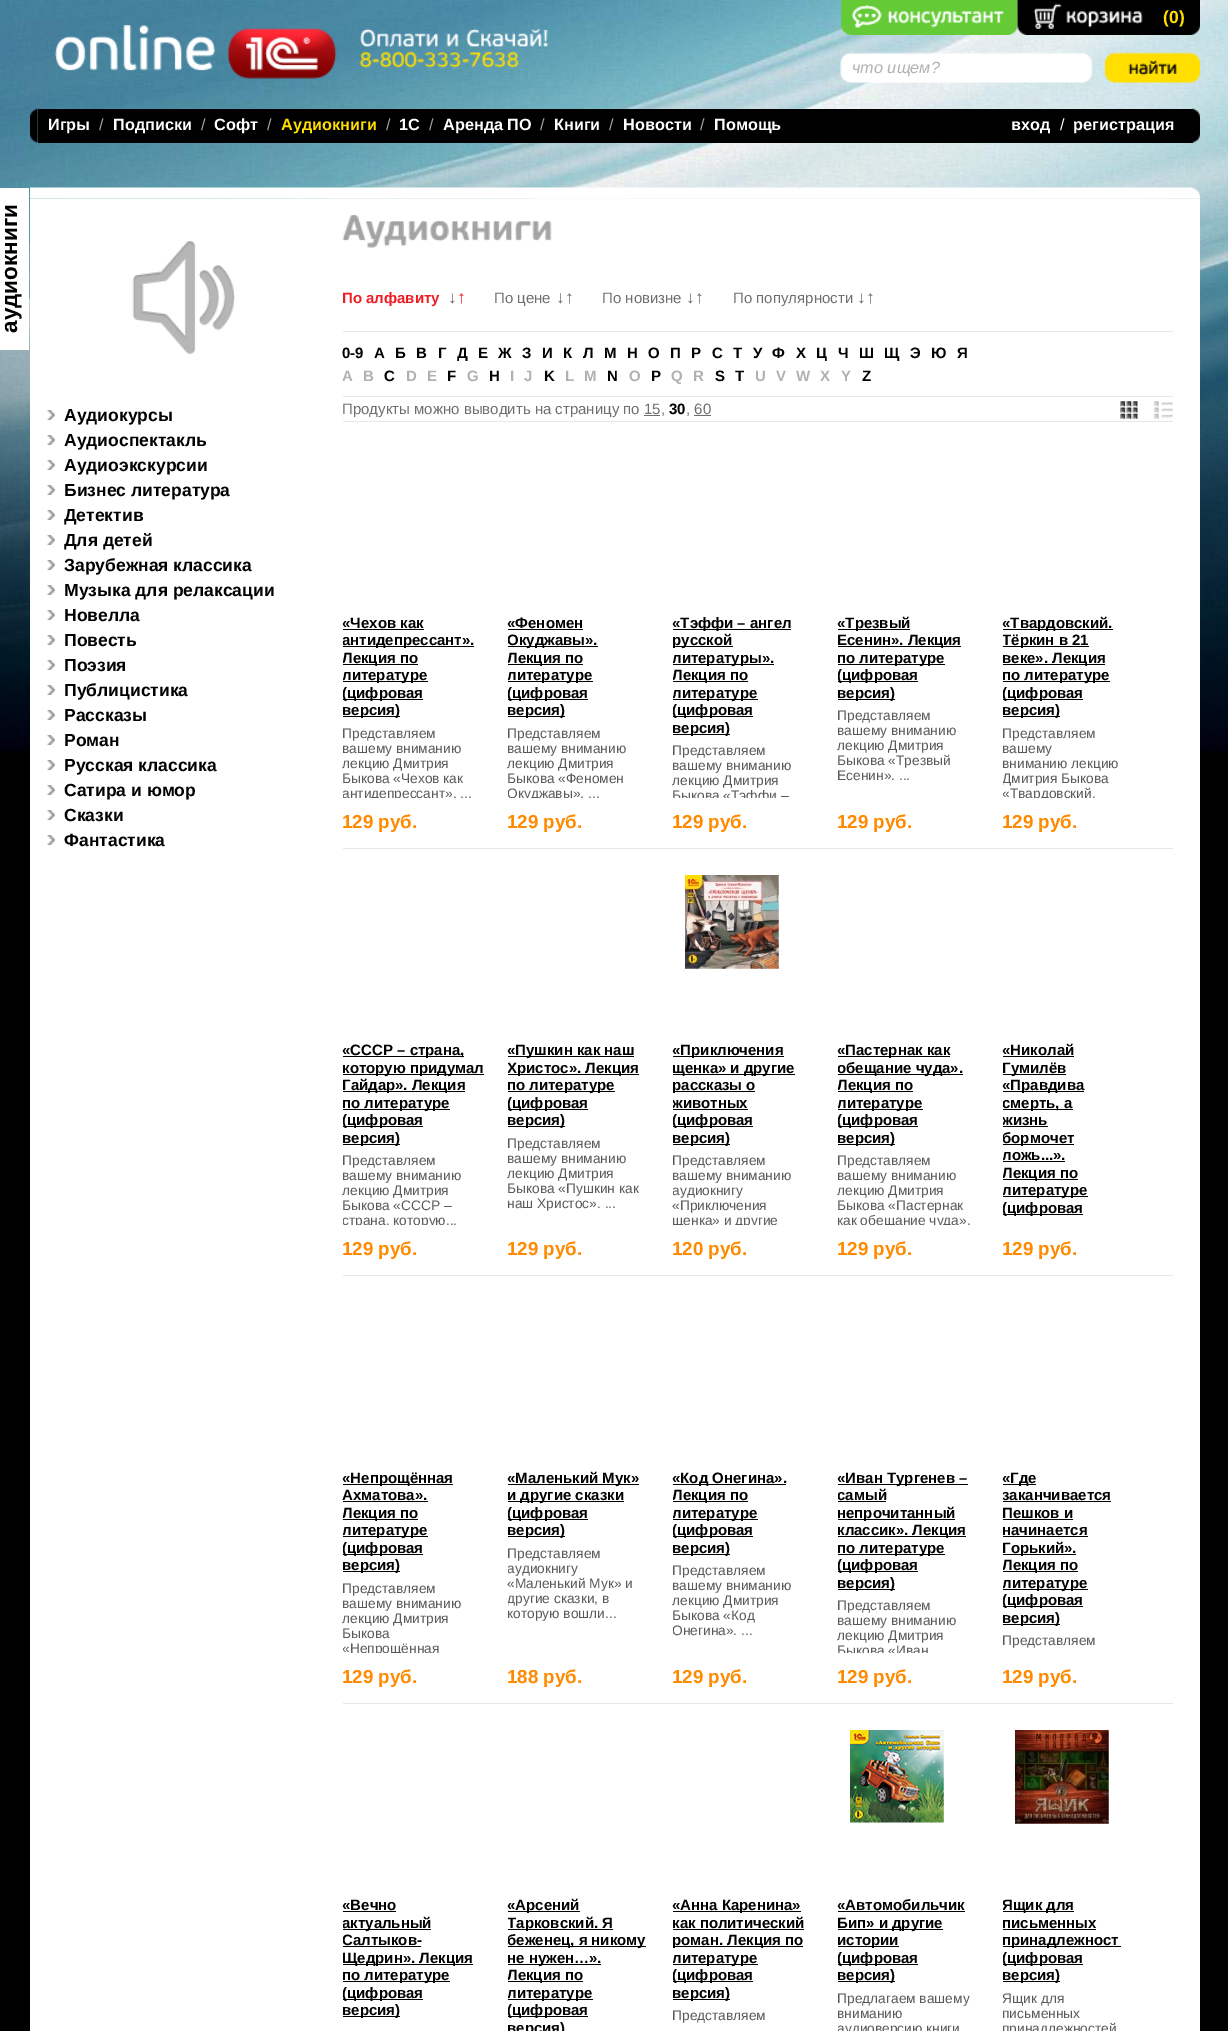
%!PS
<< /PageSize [1228 2031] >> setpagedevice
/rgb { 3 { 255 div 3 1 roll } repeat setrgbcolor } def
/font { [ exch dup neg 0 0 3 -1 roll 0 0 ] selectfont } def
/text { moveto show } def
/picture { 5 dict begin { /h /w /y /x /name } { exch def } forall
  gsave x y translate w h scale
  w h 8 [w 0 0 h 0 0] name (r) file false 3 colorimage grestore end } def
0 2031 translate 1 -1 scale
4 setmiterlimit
0 0 0 rgb
0 0 1228 2031 rectfill
(img_01.rgb) 0 0 1228 752 picture
(img_02.rgb) 841 0 177 35 picture
(img_03.rgb) 1017 0 183 35 picture
(img_04.rgb) 55 25 282 54 picture
(img_05.rgb) 360 28 78 20 picture
(img_06.rgb) 446 33 13 14 picture
(img_07.rgb) 466 28 82 19 picture
(img_08.rgb) 359 51 160 17 picture
(img_09.rgb) 840 52 253 31 picture
(img_10.rgb) 1105 52 95 31 picture
(img_11.rgb) 30 108 1170 35 picture
38 109 1155 34 rectfill
(img_12.rgb) 30 187 1170 12 picture
255 255 255 rgb
-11 339 moveto 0 -140 rlineto 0 -6 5 -11 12 -11 rcurveto 28 0 rlineto 0 162 rlineto -28 0 rlineto -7 0 -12 -5 -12 -11 rcurveto closepath fill
30 199 1170 1832 rectfill
(img_13.rgb) 132 241 103 113 picture
(img_14.rgb) 47 410 8 10 picture
(img_14.rgb) 47 435 8 10 picture
(img_14.rgb) 47 460 8 10 picture
(img_14.rgb) 47 485 8 10 picture
(img_14.rgb) 47 510 8 10 picture
(img_14.rgb) 47 535 8 10 picture
(img_14.rgb) 47 560 8 10 picture
(img_15.rgb) 47 585 8 10 picture
(img_14.rgb) 47 610 8 10 picture
(img_14.rgb) 47 635 8 10 picture
(img_14.rgb) 47 660 8 10 picture
(img_14.rgb) 47 685 8 10 picture
(img_14.rgb) 47 710 8 10 picture
(img_14.rgb) 47 735 8 10 picture
(img_14.rgb) 47 760 8 10 picture
(img_14.rgb) 47 785 8 10 picture
(img_14.rgb) 47 810 8 10 picture
(img_14.rgb) 47 835 8 10 picture
(img_16.rgb) 342 214 210 34 picture
231 231 231 rgb
343 331 830 1 rectfill
343 396 830 1 rectfill
343 421 830 1 rectfill
(img_17.rgb) 1120 401 18 18 picture
(img_18.rgb) 1153 401 20 18 picture
110 110 110 rgb
644 415 16 1 rectfill
694 415 17 1 rectfill
0 0 0 rgb
343 629 81 1 rectfill
343 646 131 1 rectfill
343 664 75 1 rectfill
343 681 85 1 rectfill
343 699 80 1 rectfill
343 716 57 1 rectfill
508 629 75 1 rectfill
508 646 90 1 rectfill
508 664 75 1 rectfill
508 681 85 1 rectfill
508 699 80 1 rectfill
508 716 57 1 rectfill
673 629 118 1 rectfill
673 646 60 1 rectfill
673 664 101 1 rectfill
673 681 75 1 rectfill
673 699 85 1 rectfill
673 716 80 1 rectfill
673 734 57 1 rectfill
838 629 72 1 rectfill
838 646 123 1 rectfill
838 664 107 1 rectfill
838 681 80 1 rectfill
838 699 57 1 rectfill
1003 629 110 1 rectfill
1003 646 86 1 rectfill
1003 664 102 1 rectfill
1003 681 107 1 rectfill
1003 699 80 1 rectfill
1003 716 57 1 rectfill
231 231 231 rgb
343 848 830 1 rectfill
0 0 0 rgb
343 1056 121 1 rectfill
343 1074 141 1 rectfill
343 1091 122 1 rectfill
343 1109 107 1 rectfill
343 1126 80 1 rectfill
343 1144 57 1 rectfill
508 1056 126 1 rectfill
508 1074 131 1 rectfill
508 1091 107 1 rectfill
508 1109 80 1 rectfill
508 1126 57 1 rectfill
(img_19.rgb) 685 875 94 94 picture
673 1056 111 1 rectfill
673 1074 122 1 rectfill
673 1091 82 1 rectfill
673 1109 75 1 rectfill
673 1126 80 1 rectfill
673 1144 57 1 rectfill
838 1056 112 1 rectfill
838 1074 125 1 rectfill
838 1091 75 1 rectfill
838 1109 85 1 rectfill
838 1126 80 1 rectfill
838 1144 57 1 rectfill
1003 1056 71 1 rectfill
1003 1074 63 1 rectfill
1003 1091 81 1 rectfill
1003 1109 70 1 rectfill
1003 1126 45 1 rectfill
1003 1144 71 1 rectfill
1003 1161 62 1 rectfill
1003 1179 75 1 rectfill
1003 1196 85 1 rectfill
1003 1214 80 1 rectfill
231 231 231 rgb
343 1275 830 1 rectfill
0 0 0 rgb
343 1484 110 1 rectfill
343 1501 85 1 rectfill
343 1519 75 1 rectfill
343 1536 85 1 rectfill
343 1554 80 1 rectfill
343 1571 57 1 rectfill
508 1484 131 1 rectfill
508 1501 116 1 rectfill
508 1519 80 1 rectfill
508 1536 57 1 rectfill
673 1484 113 1 rectfill
673 1501 75 1 rectfill
673 1519 85 1 rectfill
673 1536 80 1 rectfill
673 1554 57 1 rectfill
838 1484 130 1 rectfill
838 1501 48 1 rectfill
838 1519 117 1 rectfill
838 1536 128 1 rectfill
838 1554 107 1 rectfill
838 1571 80 1 rectfill
838 1589 57 1 rectfill
1003 1484 33 1 rectfill
1003 1501 108 1 rectfill
1003 1519 70 1 rectfill
1003 1536 85 1 rectfill
1003 1554 73 1 rectfill
1003 1571 75 1 rectfill
1003 1589 85 1 rectfill
1003 1606 80 1 rectfill
1003 1624 57 1 rectfill
231 231 231 rgb
343 1703 830 1 rectfill
0 0 0 rgb
343 1911 53 1 rectfill
343 1929 88 1 rectfill
343 1946 78 1 rectfill
343 1964 130 1 rectfill
343 1981 107 1 rectfill
343 1999 80 1 rectfill
343 2016 57 1 rectfill
508 1911 72 1 rectfill
508 1929 105 1 rectfill
508 1946 138 1 rectfill
508 1964 93 1 rectfill
508 1981 75 1 rectfill
508 1999 85 1 rectfill
508 2016 80 1 rectfill
673 1911 128 1 rectfill
673 1929 131 1 rectfill
673 1946 130 1 rectfill
673 1964 85 1 rectfill
673 1981 80 1 rectfill
673 1999 57 1 rectfill
(img_20.rgb) 850 1730 94 93 picture
838 1911 127 1 rectfill
838 1929 105 1 rectfill
838 1946 61 1 rectfill
838 1964 80 1 rectfill
838 1981 57 1 rectfill
(img_21.rgb) 1015 1730 94 94 picture
1003 1911 71 1 rectfill
1003 1929 93 1 rectfill
1003 1946 118 1 rectfill
1003 1964 80 1 rectfill
1003 1981 57 1 rectfill
/LiberationSans-Bold 17.5 font
255 222 0 rgb
(\(0\)) 1163 23 text
/LiberationSans-Italic 16.25 font
177 177 177 rgb
(что ищем?) 852 73 text
/LiberationSans-Bold 16.25 font
255 255 255 rgb
(Игры) 48 130 text
/LiberationSans-Regular 16.25 font
163 163 163 rgb
(/) 99 130 text
/LiberationSans-Bold 16.25 font
255 255 255 rgb
(Подписки) 113 130 text
/LiberationSans-Regular 16.25 font
163 163 163 rgb
(/) 201 130 text
/LiberationSans-Bold 16.25 font
255 255 255 rgb
(Софт) 214 130 text
/LiberationSans-Regular 16.25 font
163 163 163 rgb
(/) 267 130 text
/LiberationSans-Bold 16.25 font
255 222 0 rgb
(Аудиокниги) 281 130 text
/LiberationSans-Regular 16.25 font
163 163 163 rgb
(/) 386 130 text
/LiberationSans-Bold 16.25 font
255 255 255 rgb
(1C) 399 130 text
/LiberationSans-Regular 16.25 font
163 163 163 rgb
(/) 429 130 text
/LiberationSans-Bold 16.25 font
255 255 255 rgb
(Аренда ПО) 443 130 text
/LiberationSans-Regular 16.25 font
163 163 163 rgb
(/) 540 130 text
/LiberationSans-Bold 16.25 font
255 255 255 rgb
(Книги) 554 130 text
/LiberationSans-Regular 16.25 font
163 163 163 rgb
(/) 609 130 text
/LiberationSans-Bold 16.25 font
255 255 255 rgb
(Новости) 623 130 text
/LiberationSans-Regular 16.25 font
163 163 163 rgb
(/) 700 130 text
/LiberationSans-Bold 16.25 font
255 255 255 rgb
(Помощь) 714 130 text
(вход) 1011 130 text
/LiberationSans-Regular 16.25 font
(/) 1060 130 text
/LiberationSans-Bold 16.25 font
(регистрация) 1073 130 text
/LiberationSans-Bold 22.5 font
0 0 0 rgb
gsave 17 333 translate -90 rotate 0 0 moveto (аудиокниги) show grestore
/LiberationSans-Bold 17.5 font
(Аудиокурсы) 64 421 text
(Аудиоспектакль) 64 446 text
(Аудиоэкскурсии) 64 471 text
(Бизнес литература) 64 496 text
(Детектив) 64 521 text
(Для детей) 64 546 text
(Зарубежная классика) 64 571 text
(Музыка для релаксации) 64 596 text
(Новелла) 64 621 text
(Повесть) 64 646 text
(Поэзия) 64 671 text
(Публицистика) 64 696 text
(Рассказы) 64 721 text
(Роман) 64 746 text
(Русская классика) 64 771 text
(Сатира и юмор) 64 796 text
(Сказки) 64 821 text
(Фантастика) 64 846 text
/LiberationSans-Bold 15 font
238 28 36 rgb
(По алфавиту) 342 303 text
/LiberationSans-Regular 17.5 font
110 110 110 rgb
(↓) 448 303 text
/LiberationSans-Bold 17.5 font
238 28 36 rgb
(↑) 457 303 text
/LiberationSans-Regular 15 font
110 110 110 rgb
(По цене) 494 303 text
/LiberationSans-Regular 17.5 font
(↓↑) 556 303 text
/LiberationSans-Regular 15 font
(По новизне) 602 303 text
/LiberationSans-Regular 17.5 font
(↓↑) 686 303 text
/LiberationSans-Regular 15 font
(По популярности) 733 303 text
/LiberationSans-Regular 17.5 font
(↓↑) 857 303 text
/LiberationSans-Bold 15 font
0 0 0 rgb
(0-9) 342 358 text
(А) 374 358 text
(Б) 395 358 text
(В) 416 358 text
(Г) 438 358 text
(Д) 457 358 text
(Е) 478 358 text
(Ж) 498 358 text
(З) 522 358 text
(И) 542 358 text
(К) 563 358 text
(Л) 583 358 text
(М) 604 358 text
(Н) 627 358 text
(О) 648 358 text
(П) 670 358 text
(Р) 691 358 text
(С) 712 358 text
(Т) 733 358 text
(У) 753 358 text
(Ф) 772 358 text
(Х) 796 358 text
(Ц) 816 358 text
(Ч) 838 358 text
(Ш) 859 358 text
(Щ) 884 358 text
(Э) 910 358 text
(Ю) 931 358 text
(Я) 957 358 text
177 177 177 rgb
342 381 moveto 6 0 32 (A B) widthshow
0 0 0 rgb
(C) 384 381 text
177 177 177 rgb
406 381 moveto 6 0 32 (D E) widthshow
0 0 0 rgb
(F) 447 381 text
177 177 177 rgb
(G) 467 381 text
0 0 0 rgb
(H) 489 381 text
177 177 177 rgb
510 381 moveto 6 0 32 (I J) widthshow
0 0 0 rgb
(K) 544 381 text
177 177 177 rgb
565 381 moveto 6 0 32 (L M) widthshow
0 0 0 rgb
(N) 607 381 text
177 177 177 rgb
(O) 629 381 text
0 0 0 rgb
(P) 651 381 text
177 177 177 rgb
671 381 moveto 6 0 32 (Q R) widthshow
0 0 0 rgb
(S) 715 381 text
(T) 735 381 text
177 177 177 rgb
755 381 moveto 6 0 32 (U V W X Y) widthshow
0 0 0 rgb
(Z) 862 381 text
/LiberationSans-Regular 15 font
110 110 110 rgb
(Продукты можно выводить на страницу по 15,) 342 414 text
/LiberationSans-Bold 15 font
0 0 0 rgb
(30) 669 414 text
/LiberationSans-Regular 15 font
110 110 110 rgb
(, 60) 686 414 text
/LiberationSans-Bold 15 font
0 0 0 rgb
(«Чехов как) 342 628 text
gsave
343 448 142 350 rectclip
(антидепрессант».) 342 645 text
(Лекция по) 342 663 text
(литературе) 342 680 text
(\(цифровая) 342 698 text
(версия\)) 342 715 text
grestore
/LiberationSans-Regular 13.75 font
90 90 90 rgb
(Представляем) 342 738 text
gsave
343 448 142 350 rectclip
(вашему вниманию) 342 753 text
grestore
(лекцию Дмитрия) 342 768 text
(Быкова «Чехов как) 342 783 text
gsave
343 448 142 350 rectclip
(антидепрессант».) 342 798 text
grestore
(...) 460 798 text
/LiberationSans-Bold 18.75 font
255 138 0 rgb
(129 руб.) 342 828 text
/LiberationSans-Bold 15 font
0 0 0 rgb
(«Феномен) 507 628 text
gsave
508 448 142 350 rectclip
(Окуджавы».) 507 645 text
(Лекция по) 507 663 text
(литературе) 507 680 text
(\(цифровая) 507 698 text
(версия\)) 507 715 text
grestore
/LiberationSans-Regular 13.75 font
90 90 90 rgb
(Представляем) 507 738 text
gsave
508 448 142 350 rectclip
(вашему вниманию) 507 753 text
grestore
(лекцию Дмитрия) 507 768 text
(Быкова «Феномен) 507 783 text
gsave
508 448 142 350 rectclip
(Окуджавы». ...) 507 798 text
grestore
/LiberationSans-Bold 18.75 font
255 138 0 rgb
(129 руб.) 507 828 text
/LiberationSans-Bold 15 font
0 0 0 rgb
(«Тэффи – ангел) 672 628 text
gsave
673 448 142 350 rectclip
(русской) 672 645 text
(литературы».) 672 663 text
(Лекция по) 672 680 text
(литературе) 672 698 text
(\(цифровая) 672 715 text
(версия\)) 672 733 text
grestore
/LiberationSans-Regular 13.75 font
90 90 90 rgb
(Представляем) 672 755 text
gsave
673 448 142 350 rectclip
(вашему вниманию) 672 770 text
grestore
(лекцию Дмитрия) 672 785 text
gsave
673 448 142 350 rectclip
(Быкова «Тэффи –) 672 800 text
grestore
/LiberationSans-Bold 18.75 font
255 138 0 rgb
(129 руб.) 672 828 text
/LiberationSans-Bold 15 font
0 0 0 rgb
(«Трезвый) 837 628 text
gsave
838 448 142 350 rectclip
(Есенин». Лекция) 837 645 text
(по литературе) 837 663 text
(\(цифровая) 837 680 text
(версия\)) 837 698 text
grestore
/LiberationSans-Regular 13.75 font
90 90 90 rgb
(Представляем) 837 720 text
gsave
838 448 142 350 rectclip
(вашему вниманию) 837 735 text
grestore
(лекцию Дмитрия) 837 750 text
(Быкова «Трезвый) 837 765 text
(Есенин». ...) 837 780 text
/LiberationSans-Bold 18.75 font
255 138 0 rgb
(129 руб.) 837 828 text
/LiberationSans-Bold 15 font
0 0 0 rgb
(«Твардовский.) 1002 628 text
gsave
1003 448 118 350 rectclip
(Тёркин в 21) 1002 645 text
(веке». Лекция) 1002 663 text
(по литературе) 1002 680 text
(\(цифровая) 1002 698 text
(версия\)) 1002 715 text
grestore
/LiberationSans-Regular 13.75 font
90 90 90 rgb
(Представляем) 1002 738 text
gsave
1003 448 118 350 rectclip
(вашему) 1002 753 text
(вниманию лекцию) 1002 768 text
(Дмитрия Быкова) 1002 783 text
(«Твардовский.) 1002 798 text
grestore
/LiberationSans-Bold 18.75 font
255 138 0 rgb
(129 руб.) 1002 828 text
/LiberationSans-Bold 15 font
0 0 0 rgb
(«СССР – страна,) 342 1055 text
gsave
343 875 142 350 rectclip
(которую придумал) 342 1073 text
(Гайдар». Лекция) 342 1090 text
(по литературе) 342 1108 text
(\(цифровая) 342 1125 text
(версия\)) 342 1143 text
grestore
/LiberationSans-Regular 13.75 font
90 90 90 rgb
(Представляем) 342 1165 text
gsave
343 875 142 350 rectclip
(вашему вниманию) 342 1180 text
grestore
(лекцию Дмитрия) 342 1195 text
(Быкова «СССР –) 342 1210 text
gsave
343 875 142 350 rectclip
(страна, которую...) 342 1225 text
grestore
/LiberationSans-Bold 18.75 font
255 138 0 rgb
(129 руб.) 342 1255 text
/LiberationSans-Bold 15 font
0 0 0 rgb
(«Пушкин как наш) 507 1055 text
gsave
508 875 142 350 rectclip
(Христос». Лекция) 507 1073 text
(по литературе) 507 1090 text
(\(цифровая) 507 1108 text
(версия\)) 507 1125 text
grestore
/LiberationSans-Regular 13.75 font
90 90 90 rgb
(Представляем) 507 1148 text
gsave
508 875 142 350 rectclip
(вашему вниманию) 507 1163 text
grestore
(лекцию Дмитрия) 507 1178 text
(Быкова «Пушкин как) 507 1193 text
gsave
508 875 142 350 rectclip
(наш Христос». ...) 507 1208 text
grestore
/LiberationSans-Bold 18.75 font
255 138 0 rgb
(129 руб.) 507 1255 text
/LiberationSans-Bold 15 font
0 0 0 rgb
(«Приключения) 672 1055 text
gsave
673 875 142 350 rectclip
(щенка» и другие) 672 1073 text
(рассказы о) 672 1090 text
(животных) 672 1108 text
(\(цифровая) 672 1125 text
(версия\)) 672 1143 text
grestore
/LiberationSans-Regular 13.75 font
90 90 90 rgb
(Представляем) 672 1165 text
gsave
673 875 142 350 rectclip
(вашему вниманию) 672 1180 text
(аудиокнигу) 672 1195 text
grestore
(«Приключения) 672 1210 text
gsave
673 875 142 350 rectclip
(щенка» и другие) 672 1225 text
grestore
/LiberationSans-Bold 18.75 font
255 138 0 rgb
(120 руб.) 672 1255 text
/LiberationSans-Bold 15 font
0 0 0 rgb
(«Пастернак как) 837 1055 text
gsave
838 875 142 350 rectclip
(обещание чуда».) 837 1073 text
(Лекция по) 837 1090 text
(литературе) 837 1108 text
(\(цифровая) 837 1125 text
(версия\)) 837 1143 text
grestore
/LiberationSans-Regular 13.75 font
90 90 90 rgb
(Представляем) 837 1165 text
gsave
838 875 142 350 rectclip
(вашему вниманию) 837 1180 text
grestore
(лекцию Дмитрия) 837 1195 text
(Быкова «Пастернак) 837 1210 text
gsave
838 875 142 350 rectclip
(как обещание чуда».) 837 1225 text
grestore
/LiberationSans-Bold 18.75 font
255 138 0 rgb
(129 руб.) 837 1255 text
/LiberationSans-Bold 15 font
0 0 0 rgb
(«Николай) 1002 1055 text
gsave
1003 875 118 350 rectclip
(Гумилёв) 1002 1073 text
grestore
(«Правдива) 1002 1090 text
gsave
1003 875 118 350 rectclip
(смерть, а) 1002 1108 text
(жизнь) 1002 1125 text
(бормочет) 1002 1143 text
(ложь...».) 1002 1160 text
(Лекция по) 1002 1178 text
(литературе) 1002 1195 text
(\(цифровая) 1002 1213 text
grestore
/LiberationSans-Bold 18.75 font
255 138 0 rgb
(129 руб.) 1002 1255 text
/LiberationSans-Bold 15 font
0 0 0 rgb
(«Непрощённая) 342 1483 text
(Ахматова».) 342 1500 text
gsave
343 1303 142 350 rectclip
(Лекция по) 342 1518 text
(литературе) 342 1535 text
(\(цифровая) 342 1553 text
(версия\)) 342 1570 text
grestore
/LiberationSans-Regular 13.75 font
90 90 90 rgb
(Представляем) 342 1593 text
gsave
343 1303 142 350 rectclip
(вашему вниманию) 342 1608 text
grestore
(лекцию Дмитрия) 342 1623 text
(Быкова) 342 1638 text
gsave
343 1303 142 350 rectclip
(«Непрощённая) 342 1653 text
grestore
/LiberationSans-Bold 18.75 font
255 138 0 rgb
(129 руб.) 342 1683 text
/LiberationSans-Bold 15 font
0 0 0 rgb
(«Маленький Мук») 507 1483 text
gsave
508 1303 142 350 rectclip
(и другие сказки) 507 1500 text
(\(цифровая) 507 1518 text
(версия\)) 507 1535 text
grestore
/LiberationSans-Regular 13.75 font
90 90 90 rgb
(Представляем) 507 1558 text
gsave
508 1303 142 350 rectclip
(аудиокнигу) 507 1573 text
grestore
(«Маленький Мук» и) 507 1588 text
gsave
508 1303 142 350 rectclip
(другие сказки, в) 507 1603 text
(которую вошли...) 507 1618 text
grestore
/LiberationSans-Bold 18.75 font
255 138 0 rgb
(188 руб.) 507 1683 text
/LiberationSans-Bold 15 font
0 0 0 rgb
(«Код Онегина».) 672 1483 text
gsave
673 1303 142 350 rectclip
(Лекция по) 672 1500 text
(литературе) 672 1518 text
(\(цифровая) 672 1535 text
(версия\)) 672 1553 text
grestore
/LiberationSans-Regular 13.75 font
90 90 90 rgb
(Представляем) 672 1575 text
gsave
673 1303 142 350 rectclip
(вашему вниманию) 672 1590 text
grestore
(лекцию Дмитрия) 672 1605 text
(Быкова «Код) 672 1620 text
gsave
673 1303 142 350 rectclip
(Онегина». ...) 672 1635 text
grestore
/LiberationSans-Bold 18.75 font
255 138 0 rgb
(129 руб.) 672 1683 text
/LiberationSans-Bold 15 font
0 0 0 rgb
(«Иван Тургенев –) 837 1483 text
gsave
838 1303 142 350 rectclip
(самый) 837 1500 text
(непрочитанный) 837 1518 text
(классик». Лекция) 837 1535 text
(по литературе) 837 1553 text
(\(цифровая) 837 1570 text
(версия\)) 837 1588 text
grestore
/LiberationSans-Regular 13.75 font
90 90 90 rgb
(Представляем) 837 1610 text
gsave
838 1303 142 350 rectclip
(вашему вниманию) 837 1625 text
grestore
(лекцию Дмитрия) 837 1640 text
gsave
838 1303 142 350 rectclip
(Быкова «Иван) 837 1655 text
grestore
/LiberationSans-Bold 18.75 font
255 138 0 rgb
(129 руб.) 837 1683 text
/LiberationSans-Bold 15 font
0 0 0 rgb
(«Где) 1002 1483 text
gsave
1003 1303 118 350 rectclip
(заканчивается) 1002 1500 text
(Пешков и) 1002 1518 text
(начинается) 1002 1535 text
(Горький».) 1002 1553 text
(Лекция по) 1002 1570 text
(литературе) 1002 1588 text
(\(цифровая) 1002 1605 text
(версия\)) 1002 1623 text
grestore
/LiberationSans-Regular 13.75 font
90 90 90 rgb
(Представляем) 1002 1645 text
/LiberationSans-Bold 18.75 font
255 138 0 rgb
(129 руб.) 1002 1683 text
/LiberationSans-Bold 15 font
0 0 0 rgb
(«Вечно) 342 1910 text
gsave
343 1730 142 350 rectclip
(актуальный) 342 1928 text
(Салтыков-) 342 1945 text
(Щедрин». Лекция) 342 1963 text
(по литературе) 342 1980 text
(\(цифровая) 342 1998 text
(версия\)) 342 2015 text
grestore
(«Арсений) 507 1910 text
gsave
508 1730 142 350 rectclip
(Тарковский. Я) 507 1928 text
(беженец, я никому) 507 1945 text
(не нужен…».) 507 1963 text
(Лекция по) 507 1980 text
(литературе) 507 1998 text
(\(цифровая) 507 2015 text
(версия\)) 507 2033 text
grestore
(«Анна Каренина») 672 1910 text
gsave
673 1730 142 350 rectclip
(как политический) 672 1928 text
(роман. Лекция по) 672 1945 text
(литературе) 672 1963 text
(\(цифровая) 672 1980 text
(версия\)) 672 1998 text
grestore
/LiberationSans-Regular 13.75 font
90 90 90 rgb
(Представляем) 672 2020 text
/LiberationSans-Bold 15 font
0 0 0 rgb
(«Автомобильчик) 837 1910 text
gsave
838 1730 142 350 rectclip
(Бип» и другие) 837 1928 text
(истории) 837 1945 text
(\(цифровая) 837 1963 text
(версия\)) 837 1980 text
grestore
/LiberationSans-Regular 13.75 font
90 90 90 rgb
(Предлагаем вашему) 837 2003 text
gsave
838 1730 142 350 rectclip
(вниманию) 837 2018 text
(аудиоверсию книги) 837 2033 text
grestore
gsave
1003 1730 118 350 rectclip
/LiberationSans-Bold 15 font
0 0 0 rgb
(Ящик для) 1002 1910 text
(письменных) 1002 1928 text
(принадлежност) 1002 1945 text
(\(цифровая) 1002 1963 text
(версия\)) 1002 1980 text
grestore
(Ящик для) 1002 2003 text
gsave
1003 1730 118 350 rectclip
(письменных) 1002 2018 text
(принадлежностей) 1002 2033 text
grestore
showpage
